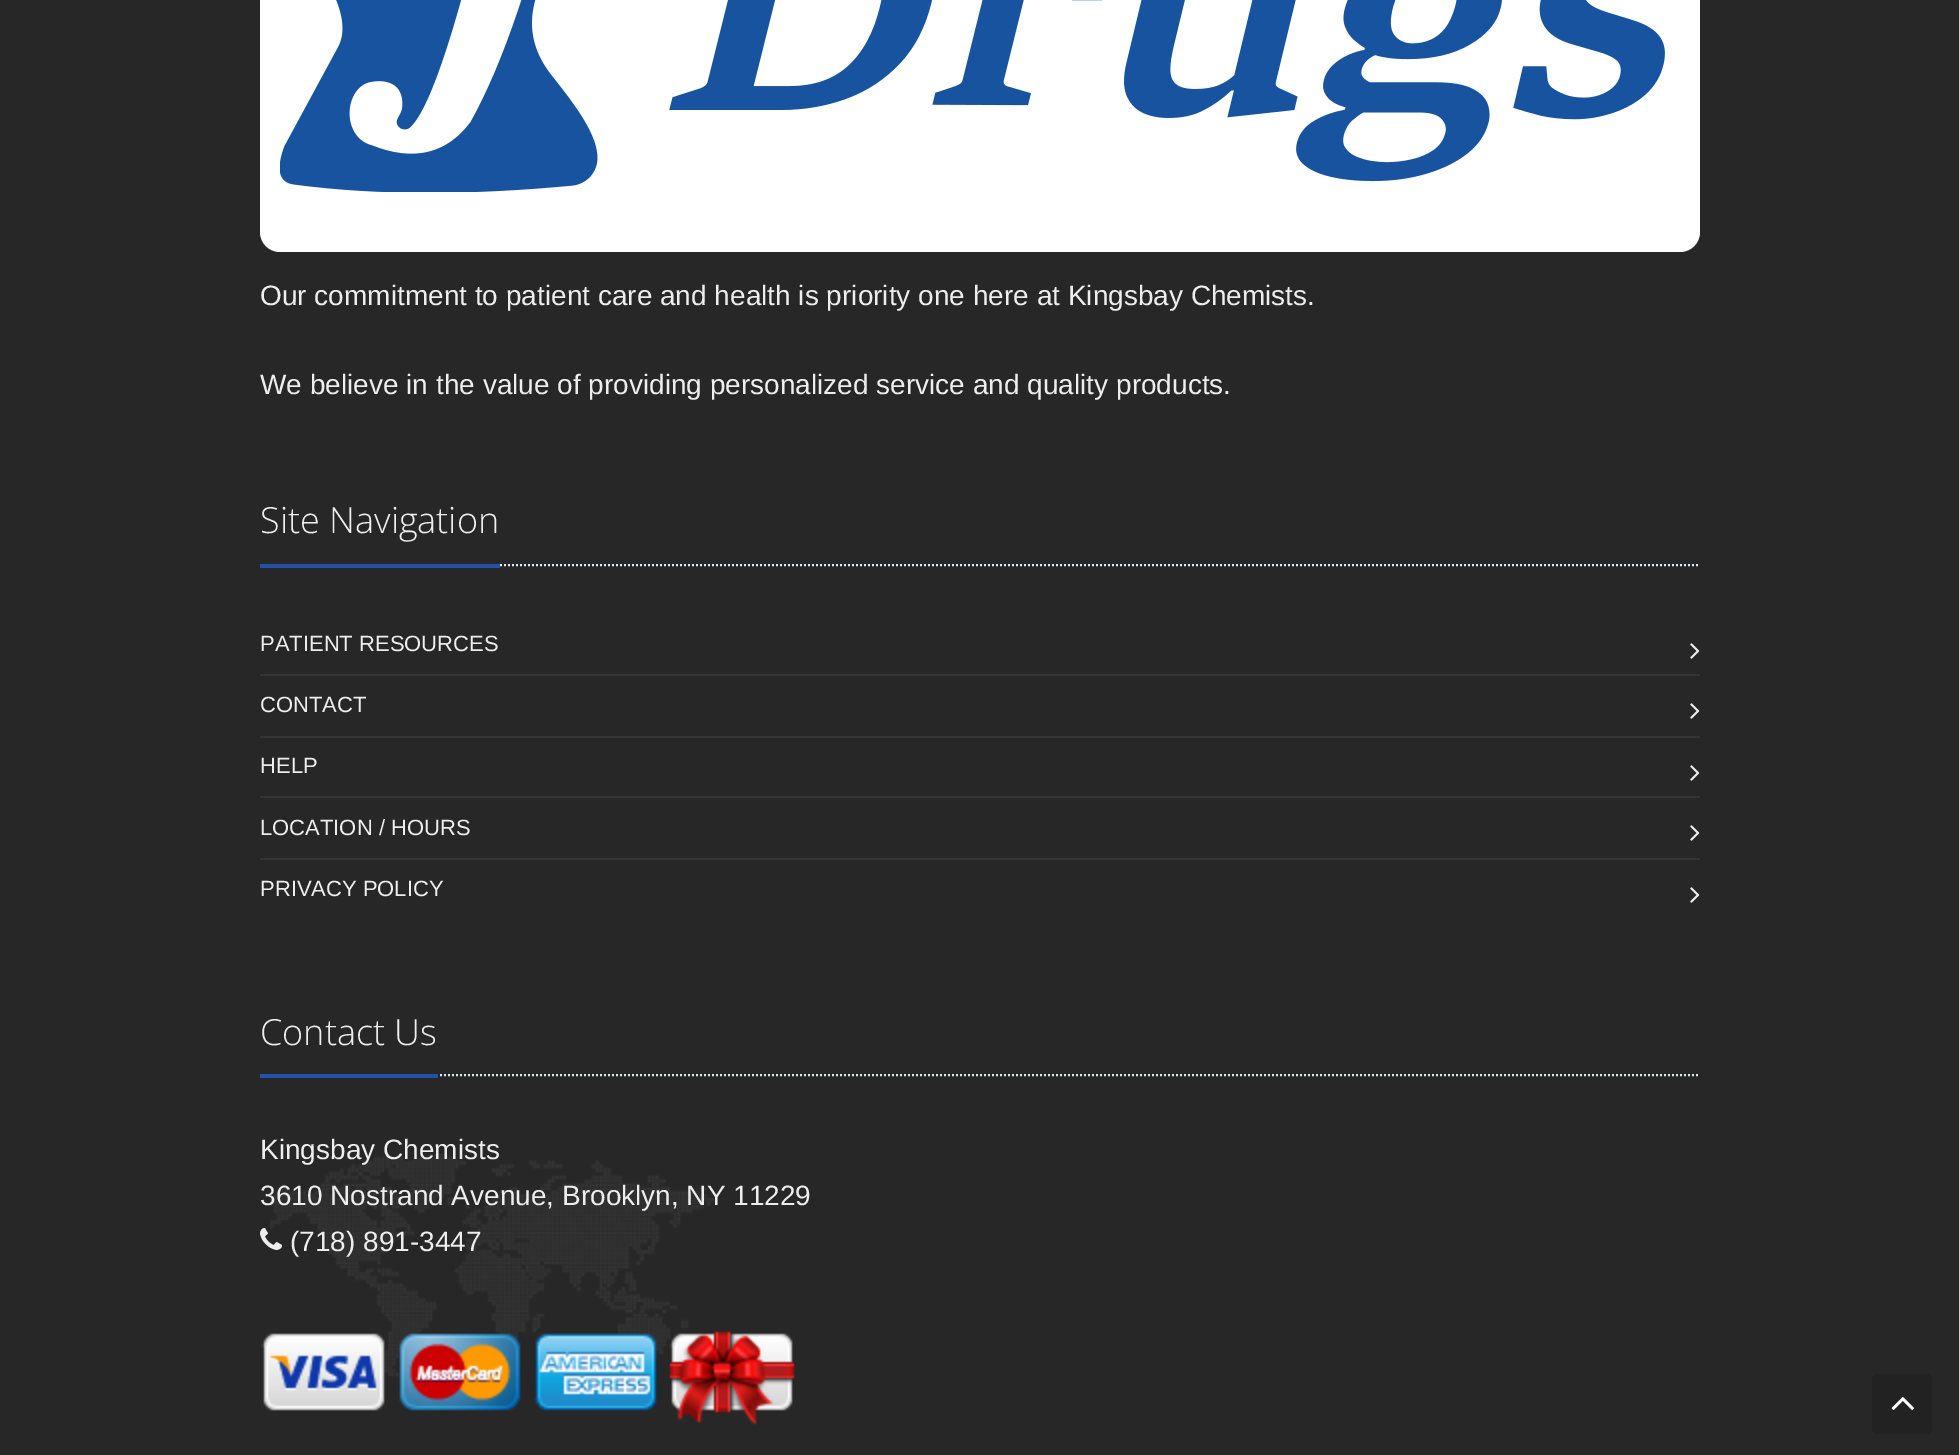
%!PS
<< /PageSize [1959 1455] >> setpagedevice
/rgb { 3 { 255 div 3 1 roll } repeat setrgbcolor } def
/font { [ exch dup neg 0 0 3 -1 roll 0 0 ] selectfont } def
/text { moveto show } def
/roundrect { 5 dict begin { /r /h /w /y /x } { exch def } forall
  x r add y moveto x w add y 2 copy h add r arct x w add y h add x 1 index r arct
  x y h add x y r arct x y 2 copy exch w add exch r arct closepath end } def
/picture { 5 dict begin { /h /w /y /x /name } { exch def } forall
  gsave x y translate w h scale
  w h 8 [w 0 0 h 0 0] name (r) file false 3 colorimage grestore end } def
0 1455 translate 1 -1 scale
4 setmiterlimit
39 39 39 rgb
0 0 1959 1455 rectfill
255 255 255 rgb
260 -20 1440 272 20 roundrect fill
(img_01.rgb) 280 0 1385 192 picture
228 233 240 rgb
2 setlinewidth
[2 2] 0 setdash
260 565 moveto 1440 0 rlineto stroke
34 81 168 rgb
260 564 240 4 rectfill
(img_02.rgb) 1690 643 10 16 picture
53 53 53 rgb
260 674 1440 2 rectfill
(img_02.rgb) 1690 703 10 16 picture
260 736 1440 2 rectfill
(img_02.rgb) 1690 765 10 16 picture
260 796 1440 2 rectfill
(img_02.rgb) 1690 825 10 16 picture
260 858 1440 2 rectfill
(img_02.rgb) 1690 887 10 16 picture
(img_03.rgb) 270 1154 444 223 picture
228 233 240 rgb
260 1075 moveto 1440 0 rlineto stroke
34 81 168 rgb
260 1074 178 4 rectfill
(img_04.rgb) 260 1228 22 22 picture
(img_05.rgb) 261 1333 124 78 picture
(img_06.rgb) 399 1333 122 78 picture
(img_07.rgb) 534 1333 123 78 picture
(img_08.rgb) 669 1331 126 94 picture
34 34 34 rgb
1872 1374 60 60 6 roundrect fill
(img_09.rgb) 1891 1397 23 13 picture
/LiberationSans-Regular 28 font
238 238 238 rgb
(Our commitment to patient care and health is priority one here at Kingsbay Chemists.) 260 305 text
(We believe in the value of providing personalized service and quality products.) 260 394 text
/OpenSans-Light 36 font
(Site Navigation) 260 533 text
/LiberationSans-Regular 22 font
(PATIENT RESOURCES) 260 651 text
(CONTACT) 260 712 text
(HELP) 260 773 text
(LOCATION / HOURS) 260 835 text
(PRIVACY POLICY) 260 896 text
/OpenSans-Light 36 font
(Contact Us) 260 1045 text
/LiberationSans-Regular 28 font
(Kingsbay Chemists) 260 1159 text
(3610 Nostrand Avenue, Brooklyn, NY 11229) 260 1205 text
(\(718\) 891-3447) 290 1251 text
showpage
